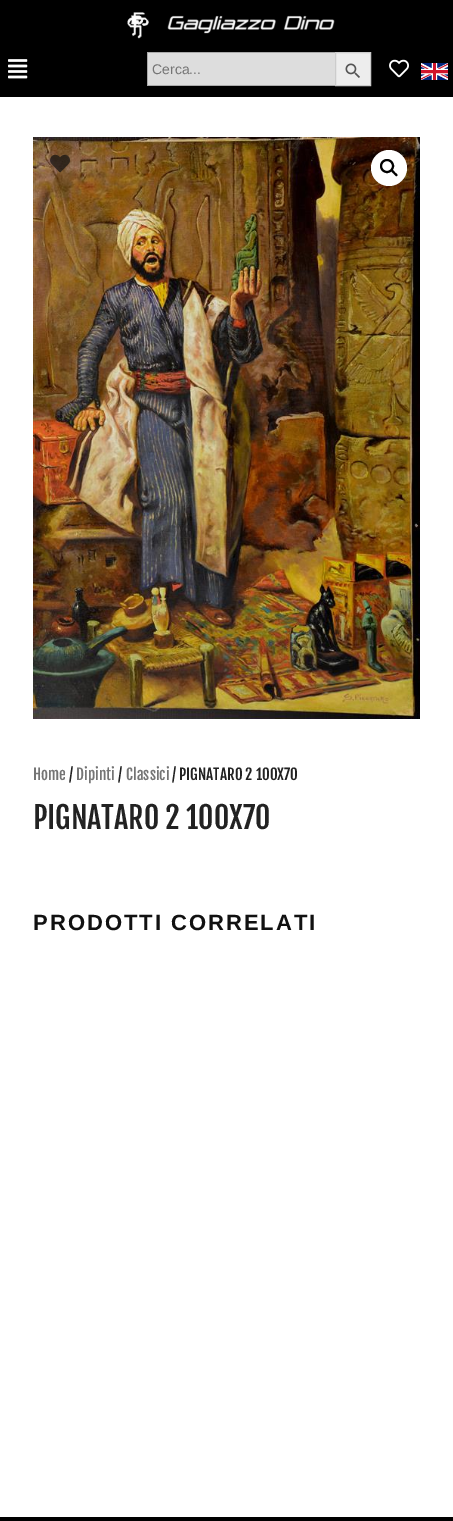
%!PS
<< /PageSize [453 1521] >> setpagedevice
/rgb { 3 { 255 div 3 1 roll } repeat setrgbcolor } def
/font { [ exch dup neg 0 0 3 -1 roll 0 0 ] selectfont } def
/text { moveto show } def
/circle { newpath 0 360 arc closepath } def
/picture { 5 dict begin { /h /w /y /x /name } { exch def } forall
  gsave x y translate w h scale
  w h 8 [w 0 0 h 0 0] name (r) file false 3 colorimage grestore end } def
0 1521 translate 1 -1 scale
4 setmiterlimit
255 255 255 rgb
0 0 453 1521 rectfill
0 0 0 rgb
0 0 453 97 rectfill
(img_01.rgb) 127 12 208 27 picture
(img_02.rgb) 8 59 20 20 picture
221 221 221 rgb
148 53 187 32 rectfill
170 170 170 rgb
147 52 188 1 rectfill
147 85 188 1 rectfill
147 52 1 34 rectfill
237 237 237 rgb
335.5 52.5 moveto 35 0 rlineto 0 33 rlineto -35 0 rlineto closepath gsave fill grestore
204 204 204 rgb
stroke
(img_03.rgb) 345 63 15 15 picture
(img_04.rgb) 389 59 20 19 picture
(img_05.rgb) 421 63 27 17 picture
(img_06.rgb) 33 137 387 582 picture
(img_07.rgb) 50 154 20 19 picture
255 255 255 rgb
389 168 18 circle fill
0 0 0 rgb
2 setlinewidth
387 166 6 circle stroke
391.5 170 moveto 1 -1 3 1.5 3.5 2.5 rcurveto 0.5 0.5 3.5 2 2 3.5 rcurveto -1 1 -2.5 -1.5 -3.5 -2.5 rcurveto -0.5 -0.5 -3 -2 -2 -3.5 rcurveto closepath fill
0 1517 453 4 rectfill
/LiberationSans-Regular 14 font
117 117 117 rgb
(Cerca...) 152 74 text
/FjallaOne-Regular 15 font
(Home) 33 780 text
34 34 34 rgb
(/) 69 780 text
117 117 117 rgb
(Dipinti) 76 780 text
34 34 34 rgb
(/) 118 780 text
117 117 117 rgb
(Classici) 126 780 text
34 34 34 rgb
(/ PIGNATARO 2 100X70) 172 780 text
/FjallaOne-Regular 30 font
(PIGNATARO 2 100X70) 33 829 text
/LiberationSans-Bold 22 font
17 17 17 rgb
33 930 moveto 2 0 (PRODOTTI CORRELATI) ashow
showpage
